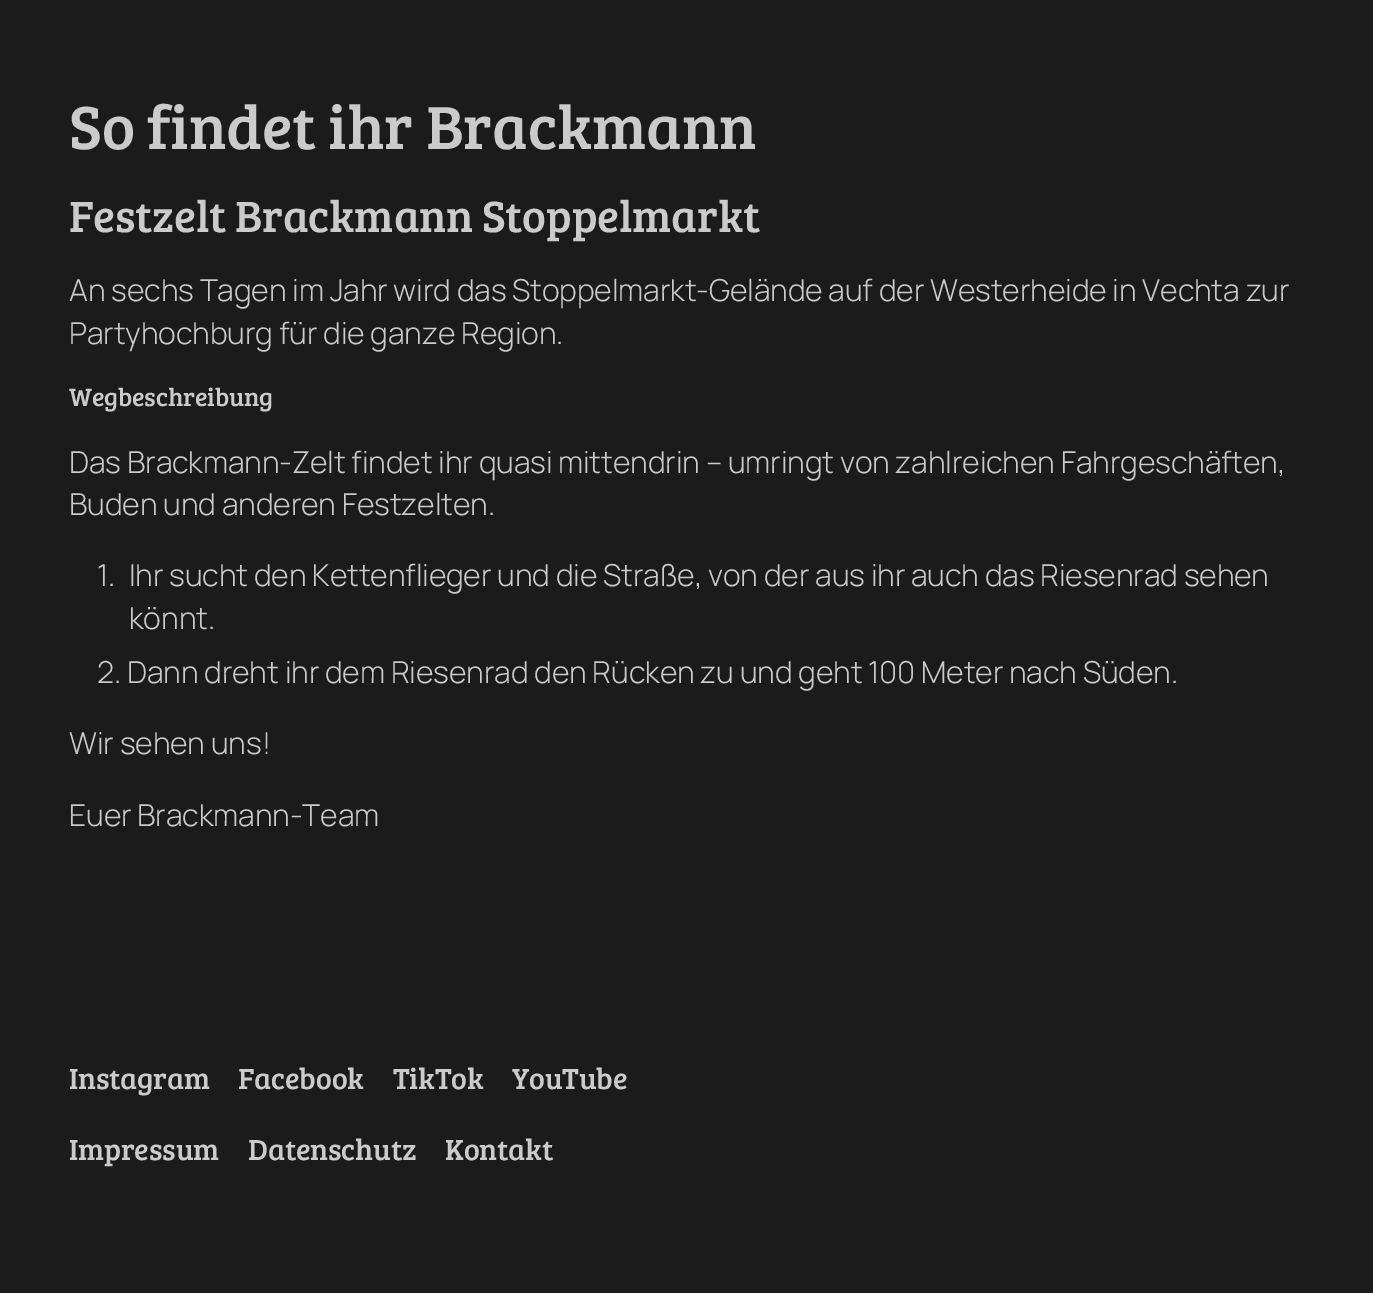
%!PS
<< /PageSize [1373 1293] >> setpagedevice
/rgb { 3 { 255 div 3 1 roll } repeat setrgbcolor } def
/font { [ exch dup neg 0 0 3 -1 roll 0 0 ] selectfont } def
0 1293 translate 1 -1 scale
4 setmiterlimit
27 27 27 rgb
0 0 1373 1293 rectfill
/BreeSerif-Regular 62.9 font
203 203 203 rgb
69 149 moveto -0.15 0 (So findet ihr Brackmann) ashow
/BreeSerif-Regular 45.25 font
69 232 moveto -0.15 0 (Festzelt Brackmann Stoppelmarkt) ashow
/Manrope-Light 30.3 font
69 301 moveto -0.15 0 (An sechs Tagen im Jahr wird das Stoppelmarkt-Gelände auf der Westerheide in Vechta zur) ashow
69 344 moveto -0.15 0 (Partyhochburg für die ganze Region.) ashow
/BreeSerif-Regular 25.75 font
69 406 moveto -0.15 0 (Wegbeschreibung) ashow
/Manrope-Light 30.3 font
69 473 moveto -0.15 0 (Das Brackmann-Zelt findet ihr quasi mittendrin – umringt von zahlreichen Fahrgeschäften,) ashow
69 515 moveto -0.15 0 (Buden und anderen Festzelten.) ashow
97 586 moveto -0.15 0 (1.) ashow
129 586 moveto -0.15 0 (Ihr sucht den Kettenflieger und die Straße, von der aus ihr auch das Riesenrad sehen) ashow
129 629 moveto -0.15 0 (könnt.) ashow
97 683 moveto -0.15 0 (2. Dann dreht ihr dem Riesenrad den Rücken zu und geht 100 Meter nach Süden.) ashow
69 754 moveto -0.15 0 (Wir sehen uns!) ashow
69 826 moveto -0.15 0 (Euer Brackmann-Team) ashow
/BreeSerif-Regular 30 font
69 1089 moveto -0.15 0 (Instagram) ashow
238 1089 moveto -0.15 0 (Facebook) ashow
393 1089 moveto -0.15 0 (TikTok) ashow
512 1089 moveto -0.15 0 (YouTube) ashow
69 1160 moveto -0.15 0 (Impressum) ashow
248 1160 moveto -0.15 0 (Datenschutz) ashow
445 1160 moveto -0.15 0 (Kontakt) ashow
showpage
